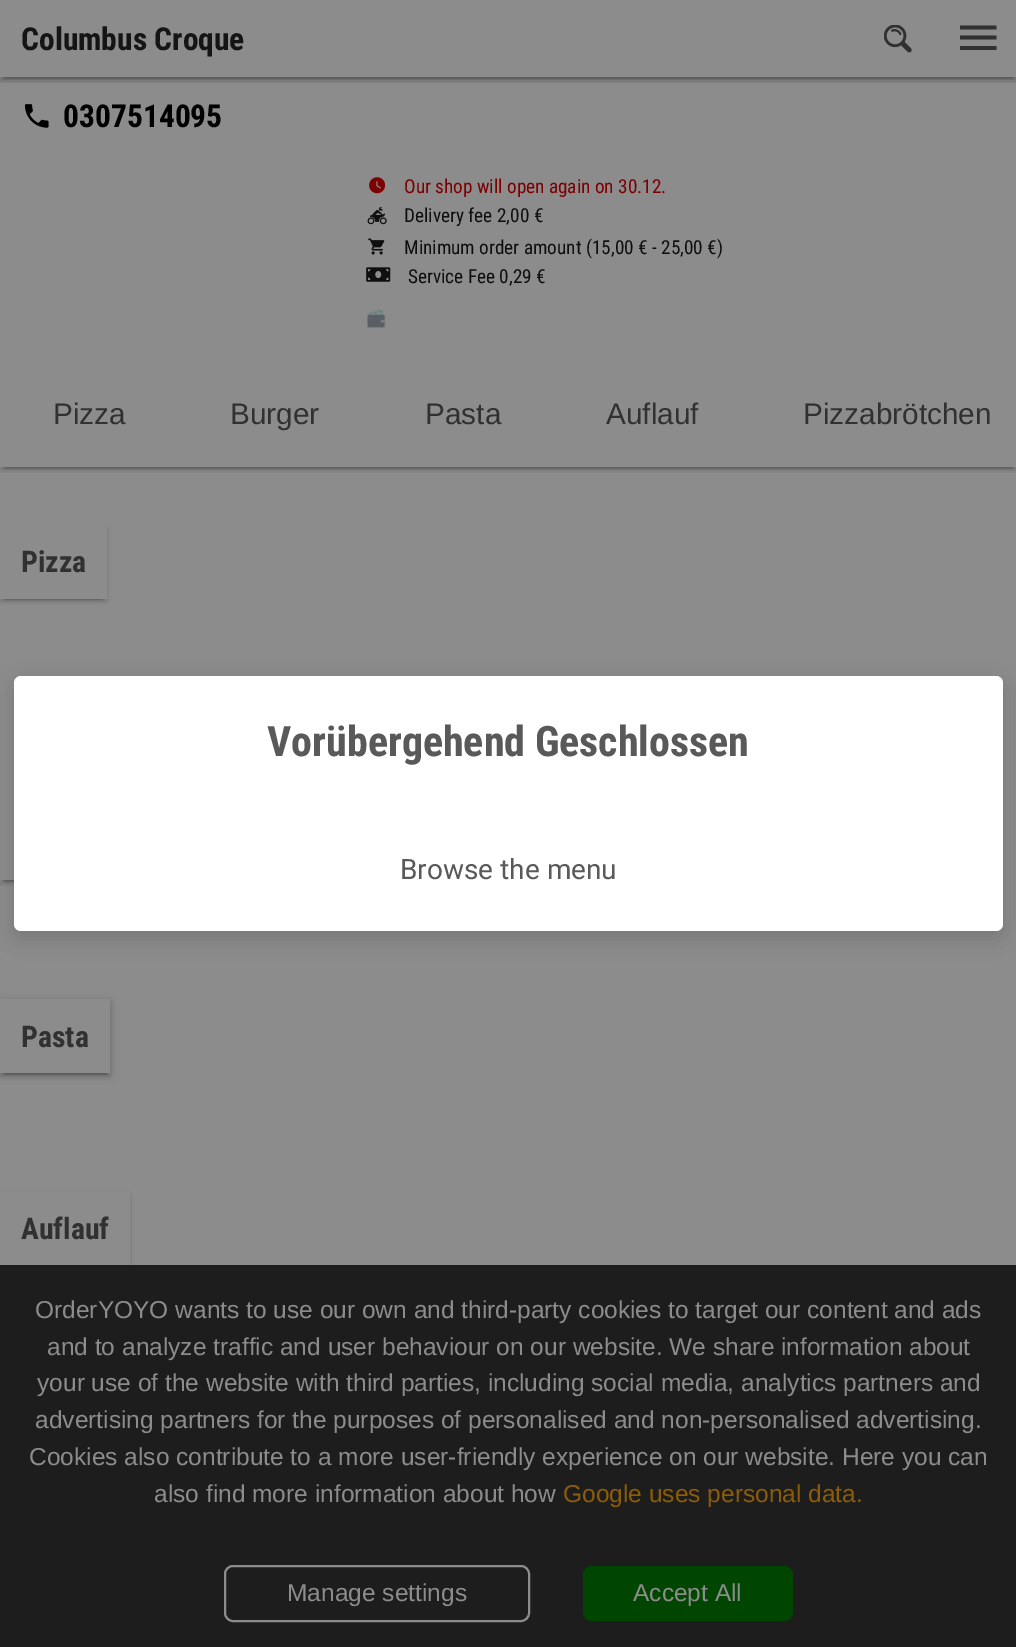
%!PS
<< /PageSize [1016 1647] /PageUsesTransparency true >> setpagedevice
/rgb { 3 { 255 div 3 1 roll } repeat setrgbcolor } def
/font { [ exch dup neg 0 0 3 -1 roll 0 0 ] selectfont } def
/text { moveto show } def
/alpha { dup .setfillconstantalpha .setstrokeconstantalpha } def
/roundrect { 5 dict begin { /r /h /w /y /x } { exch def } forall
  x r add y moveto x w add y 2 copy h add r arct x w add y h add x 1 index r arct
  x y h add x y r arct x y 2 copy exch w add exch r arct closepath end } def
/shadow { 12 dict begin { /a /b /q /h /w /y /x } { exch def } forall gsave /was 0 def
  9 -2 -9 { dup b mul 4 div /e exch def 1 sub .425 mul 2.718 exch exp 1 add a .99 .min exch div /now exch def
    1 1 now sub 1 was sub div sub alpha /was now def
    w h .min e 2 mul add 0 gt { x e sub y e sub w e 2 mul add h e 2 mul add
      q e add b .6 mul add w h .min 2 div e add .min 0 .max roundrect fill } if } for grestore end } def
/picture { 5 dict begin { /h /w /y /x /name } { exch def } forall
  gsave x y translate w h scale
  w h 8 [w 0 0 h 0 0] name (r) file false 3 colorimage grestore end } def
0 .pushpdf14devicefilter
0 1647 translate 1 -1 scale
4 setmiterlimit
140 140 140 rgb
0 0 1016 1647 rectfill
gsave
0 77 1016 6 rectclip
0 0 0 rgb
0 2 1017 77 0 4.5 0.12 shadow
0 4 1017 77 0 2 0.14 shadow
grestore
gsave
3 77 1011 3 rectclip
0 0 0 rgb
4 9 1009 70 0 1 0.2 shadow
grestore
(img_01.rgb) 884 25 28 28 picture
49 49 49 rgb
960 25.5 moveto 36.5 0 rlineto 0 4 rlineto -36.5 0 rlineto closepath 960 35.5 moveto 36.5 0 rlineto 0 4 rlineto -36.5 0 rlineto closepath 960 46 moveto 36.5 0 rlineto 0 4 rlineto -36.5 0 rlineto closepath fill
(img_02.rgb) 24 104 25 24 picture
(img_03.rgb) 369 177 17 17 picture
(img_04.rgb) 367 207 20 18 picture
(img_05.rgb) 368 238 17 17 picture
(img_06.rgb) 366 267 25 15 picture
(img_07.rgb) 367 309 19 19 picture
gsave
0 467 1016 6 rectclip
0 0 0 rgb
0 366 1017 105 0 2 0.14 shadow
grestore
gsave
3 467 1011 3 rectclip
0 0 0 rgb
4 371 1009 98 0 1 0.2 shadow
grestore
gsave
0 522 moveto 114 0 rlineto 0 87 rlineto -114 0 rlineto closepath 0 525 moveto 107 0 rlineto 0 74 rlineto -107 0 rlineto closepath eoclip newpath
0 0 0 rgb
0 529 107 73 0 2 0.14 shadow
grestore
gsave
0 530 moveto 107 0 rlineto 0 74 rlineto -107 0 rlineto closepath 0 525 moveto 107 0 rlineto 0 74 rlineto -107 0 rlineto closepath eoclip newpath
0 0 0 rgb
4 534 99 66 0 1 0.2 shadow
grestore
gsave
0 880 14 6 rectclip
0 0 0 rgb
0 810 123 74 0 2 0.14 shadow
grestore
gsave
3 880 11 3 rectclip
0 0 0 rgb
4 816 115 66 0 1 0.2 shadow
grestore
gsave
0 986 moveto 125 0 rlineto 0 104 rlineto -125 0 rlineto closepath 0 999 moveto 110 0 rlineto 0 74 rlineto -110 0 rlineto closepath eoclip newpath
0 0 0 rgb
0 1001 110 74 0 4.5 0.12 shadow
grestore
gsave
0 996 moveto 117 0 rlineto 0 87 rlineto -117 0 rlineto closepath 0 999 moveto 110 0 rlineto 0 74 rlineto -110 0 rlineto closepath eoclip newpath
0 0 0 rgb
0 1003 110 73 0 2 0.14 shadow
grestore
gsave
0 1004 moveto 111 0 rlineto 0 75 rlineto -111 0 rlineto closepath 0 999 moveto 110 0 rlineto 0 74 rlineto -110 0 rlineto closepath eoclip newpath
0 0 0 rgb
4 1008 103 67 0 1 0.2 shadow
grestore
gsave
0 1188 moveto 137 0 rlineto 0 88 rlineto -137 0 rlineto closepath 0 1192 moveto 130 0 rlineto 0 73 rlineto -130 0 rlineto closepath eoclip newpath
0 0 0 rgb
0 1195 130 74 0 2 0.14 shadow
grestore
29 29 29 rgb
0 1265 1016 382 rectfill
140 140 140 rgb
2 setlinewidth
225 1566 304 55 8 roundrect stroke
0 70 0 rgb
583 1566 210 55 9 roundrect fill
0 0 0 rgb
14 683 989 255 7 10.5 0.15 shadow
255 255 255 rgb
14 676 989 255 7 roundrect fill
/RobotoCondensed-Bold 31.5 font
21 21 21 rgb
(Columbus Croque) 21 50 text
0 0 0 rgb
(0307514095) 63 127 text
/RobotoCondensed-Regular 19.25 font
125 0 1 rgb
(Our shop will open again on 30.12.) 404 193 text
15 15 15 rgb
(Delivery fee 2,00 €) 404 222 text
(Minimum order amount \(15,00 € - 25,00 €\)) 404 254 text
(Service Fee 0,29 €) 408 283 text
/LiberationSans-Regular 29.75 font
49 49 49 rgb
(Pizza) 53 424 text
(Burger) 230 424 text
(Pasta) 425 424 text
(Auflauf) 606 424 text
(Pizzabrötchen) 803 424 text
/RobotoCondensed-Bold 29.75 font
(Pizza) 21 572 text
(Pasta) 21 1047 text
(Auflauf) 21 1239 text
/LiberationSans-Regular 24.5 font
140 140 140 rgb
(OrderYOYO wants to use our own and third-party cookies to target our content and ads) 35 1318 text
(and to analyze traffic and user behaviour on our website. We share information about) 47 1355 text
(your use of the website with third parties, including social media, analytics partners and) 37 1391 text
(advertising partners for the purposes of personalised and non-personalised advertising.) 35 1428 text
(Cookies also contribute to a more user-friendly experience on our website. Here you can) 29 1465 text
(also find more information about how) 154 1502 text
140 92 6 rgb
(Google uses personal data.) 563 1502 text
140 140 140 rgb
(Manage settings) 287 1601 text
(Accept All) 633 1601 text
/RobotoCondensed-Bold 42 font
89 89 89 rgb
(Vorübergehend Geschlossen) 267 756 text
/Roboto-Regular 28 font
(Browse the menu) 400 879 text
.poppdf14devicefilter showpage
